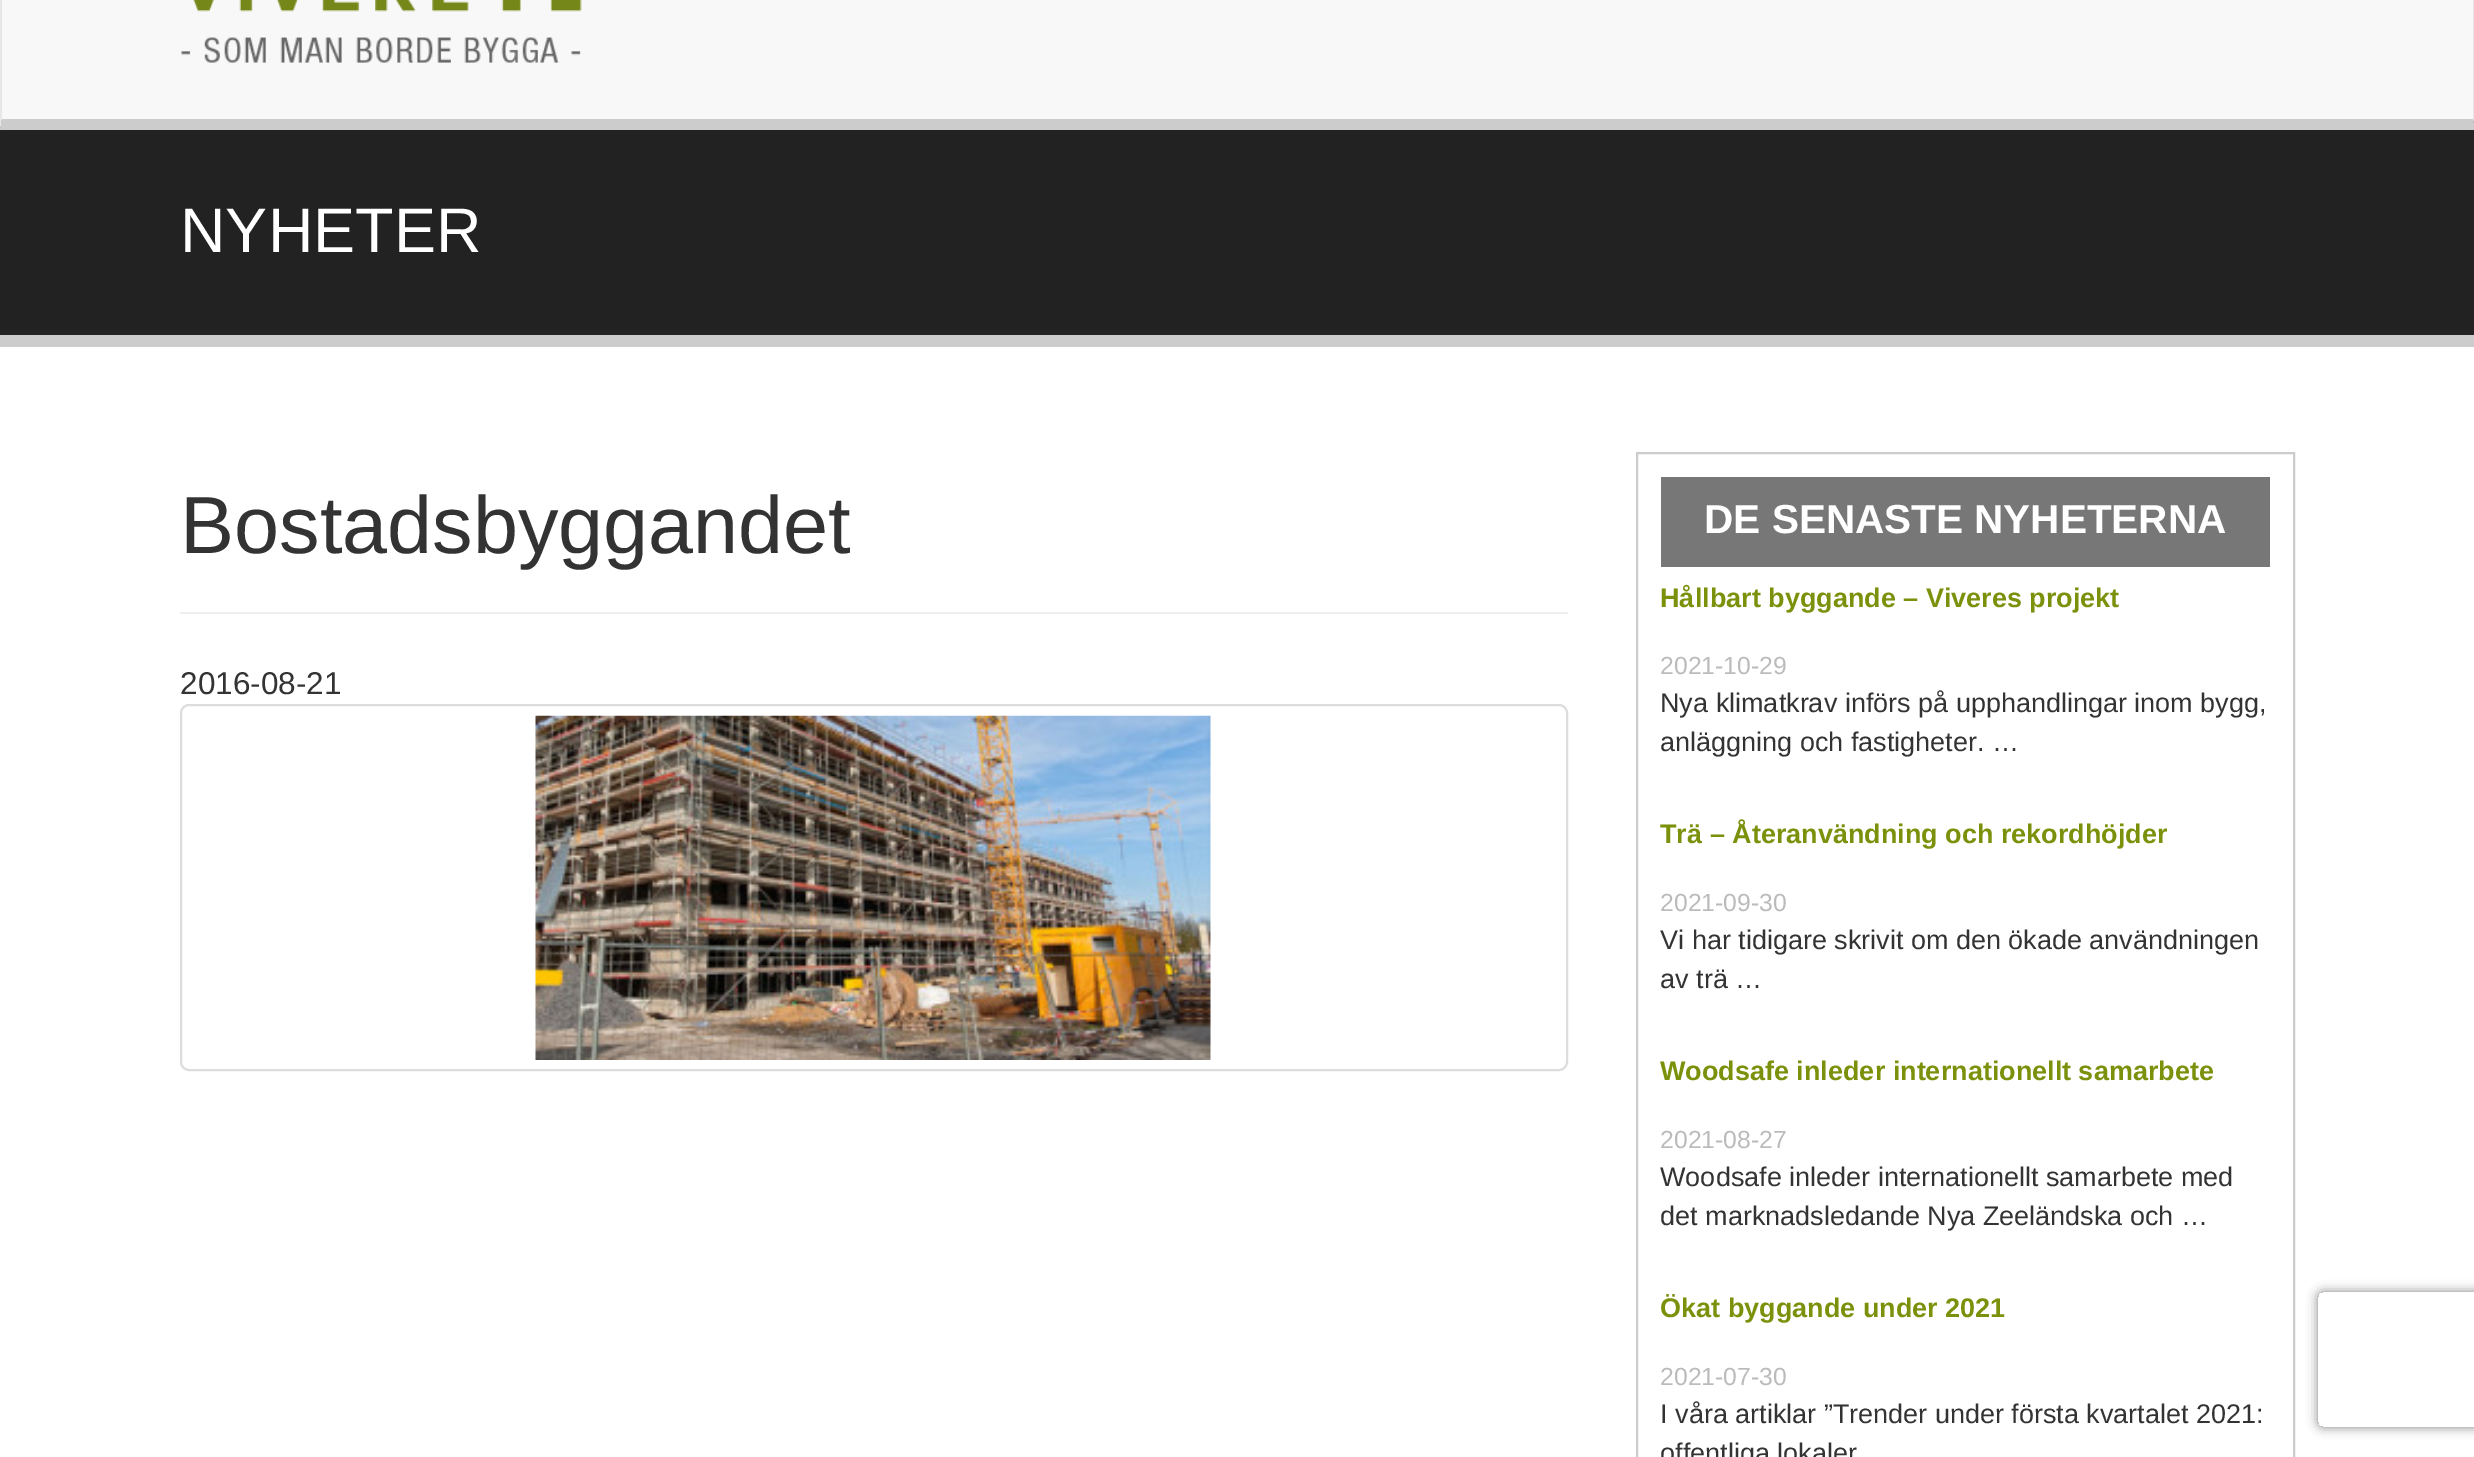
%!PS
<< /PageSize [2474 1457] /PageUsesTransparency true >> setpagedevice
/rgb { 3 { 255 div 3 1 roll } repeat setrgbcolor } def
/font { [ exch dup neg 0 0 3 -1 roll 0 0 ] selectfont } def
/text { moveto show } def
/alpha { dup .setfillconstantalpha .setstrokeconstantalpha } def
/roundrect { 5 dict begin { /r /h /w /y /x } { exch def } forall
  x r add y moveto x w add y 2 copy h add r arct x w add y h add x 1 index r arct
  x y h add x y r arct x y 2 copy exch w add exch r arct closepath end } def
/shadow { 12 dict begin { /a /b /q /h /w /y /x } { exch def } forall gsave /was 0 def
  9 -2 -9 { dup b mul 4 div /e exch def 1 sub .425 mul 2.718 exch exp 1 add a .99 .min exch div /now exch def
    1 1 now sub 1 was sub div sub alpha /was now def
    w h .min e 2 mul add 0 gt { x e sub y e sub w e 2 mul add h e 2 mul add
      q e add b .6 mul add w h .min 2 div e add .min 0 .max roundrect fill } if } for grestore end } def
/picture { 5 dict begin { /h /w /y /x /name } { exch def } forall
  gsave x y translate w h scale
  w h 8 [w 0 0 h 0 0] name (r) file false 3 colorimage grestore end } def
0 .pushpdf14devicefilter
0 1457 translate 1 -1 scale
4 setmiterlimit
34 34 34 rgb
0 0 2474 1457 rectfill
248 248 248 rgb
2 0 2471 119 rectfill
231 231 231 rgb
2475 -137 moveto 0 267 rlineto -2 -11 rlineto 0 -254 rlineto closepath fill
204 204 204 rgb
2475 130 moveto -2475 0 rlineto 2 -11 rlineto 2471 0 rlineto closepath fill
231 231 231 rgb
0 130 moveto 0 -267 rlineto 2 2 rlineto 0 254 rlineto closepath fill
(img_01.rgb) 181 0 401 63 picture
204 204 204 rgb
0 335 2474 12 rectfill
255 255 255 rgb
0 347 2474 1110 rectfill
238 238 238 rgb
180 612 1388 2 rectfill
221 221 221 rgb
2 setlinewidth
181 705 1386 365 8 roundrect stroke
(img_02.rgb) 535 715 676 345 picture
204 204 204 rgb
1637 453 657 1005 rectstroke
119 119 119 rgb
1661 477 609 90 rectfill
gsave
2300 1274 moveto 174 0 rlineto 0 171 rlineto -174 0 rlineto closepath 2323 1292 moveto 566 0 rlineto 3 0 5 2 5 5 rcurveto 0 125 rlineto 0 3 -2 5 -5 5 rcurveto -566 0 rlineto -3 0 -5 -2 -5 -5 rcurveto 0 -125 rlineto 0 -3 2 -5 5 -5 rcurveto closepath eoclip newpath
128 128 128 rgb
2318 1292 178 135 5 5.5 1 shadow
grestore
/LiberationSans-Regular 63 font
255 255 255 rgb
(NYHETER) 180 252 text
/LiberationSans-Regular 81 font
51 51 51 rgb
(Bostadsbyggandet) 180 553 text
/LiberationSans-Regular 31.5 font
(2016-08-21) 180 694 text
/LiberationSans-Bold 40.5 font
255 255 255 rgb
(DE SENASTE NYHETERNA) 1704 533 text
/LiberationSans-Bold 27 font
124 145 11 rgb
(Hållbart byggande – Viveres projekt) 1660 607 text
/LiberationSans-Regular 24.75 font
187 187 187 rgb
(2021-10-29) 1660 674 text
/LiberationSans-Regular 27 font
51 51 51 rgb
(Nya klimatkrav införs på upphandlingar inom bygg,) 1660 712 text
(anläggning och fastigheter. …) 1660 751 text
/LiberationSans-Bold 27 font
124 145 11 rgb
(Trä – Återanvändning och rekordhöjder) 1660 843 text
/LiberationSans-Regular 24.75 font
187 187 187 rgb
(2021-09-30) 1660 911 text
/LiberationSans-Regular 27 font
51 51 51 rgb
(Vi har tidigare skrivit om den ökade användningen) 1660 949 text
(av trä …) 1660 988 text
/LiberationSans-Bold 27 font
124 145 11 rgb
(Woodsafe inleder internationellt samarbete) 1660 1080 text
/LiberationSans-Regular 24.75 font
187 187 187 rgb
(2021-08-27) 1660 1148 text
/LiberationSans-Regular 27 font
51 51 51 rgb
(Woodsafe inleder internationellt samarbete med) 1660 1186 text
(det marknadsledande Nya Zeeländska och …) 1660 1225 text
/LiberationSans-Bold 27 font
124 145 11 rgb
(Ökat byggande under 2021) 1660 1317 text
/LiberationSans-Regular 24.75 font
187 187 187 rgb
(2021-07-30) 1660 1385 text
/LiberationSans-Regular 27 font
51 51 51 rgb
(I våra artiklar ”Trender under första kvartalet 2021:) 1660 1423 text
(offentliga lokaler) 1660 1462 text
.poppdf14devicefilter showpage
